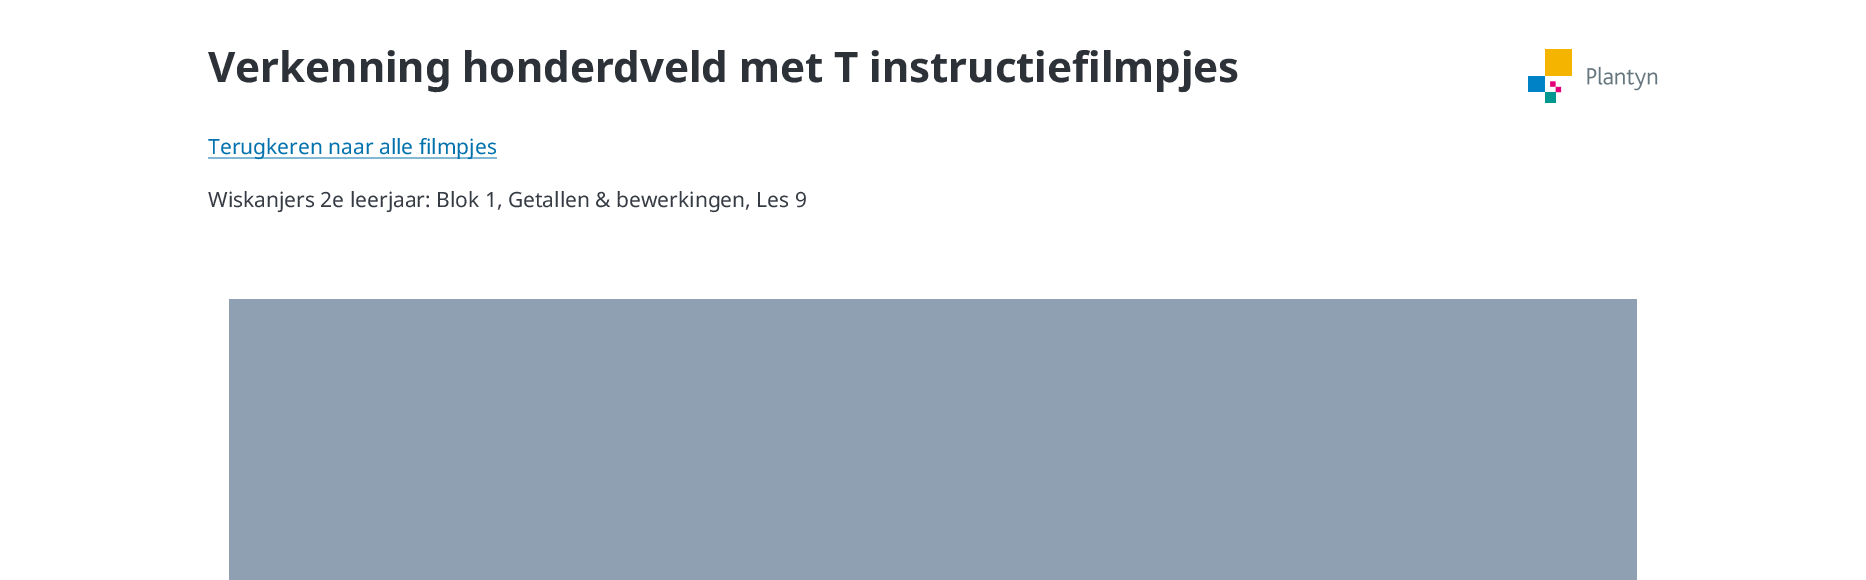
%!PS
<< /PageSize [1866 580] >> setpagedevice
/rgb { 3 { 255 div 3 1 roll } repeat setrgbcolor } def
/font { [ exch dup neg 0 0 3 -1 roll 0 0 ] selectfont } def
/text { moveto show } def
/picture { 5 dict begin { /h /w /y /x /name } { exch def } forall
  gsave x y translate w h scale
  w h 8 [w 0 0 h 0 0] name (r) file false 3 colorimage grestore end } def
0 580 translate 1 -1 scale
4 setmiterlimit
255 255 255 rgb
0 0 1866 580 rectfill
(img_01.rgb) 1528 49 130 54 picture
128 184 214 rgb
208 157 289 2 rectfill
144 160 179 rgb
229 299 1408 281 rectfill
/NotoSans-Bold 42 font
45 49 56 rgb
(Verkenning honderdveld met T instructiefilmpjes) 208 82 text
/NotoSans-Regular 21 font
1 114 173 rgb
(Terugkeren naar alle filmpjes) 208 154 text
55 60 68 rgb
(Wiskanjers 2e leerjaar: Blok 1, Getallen & bewerkingen, Les 9) 208 207 text
showpage
